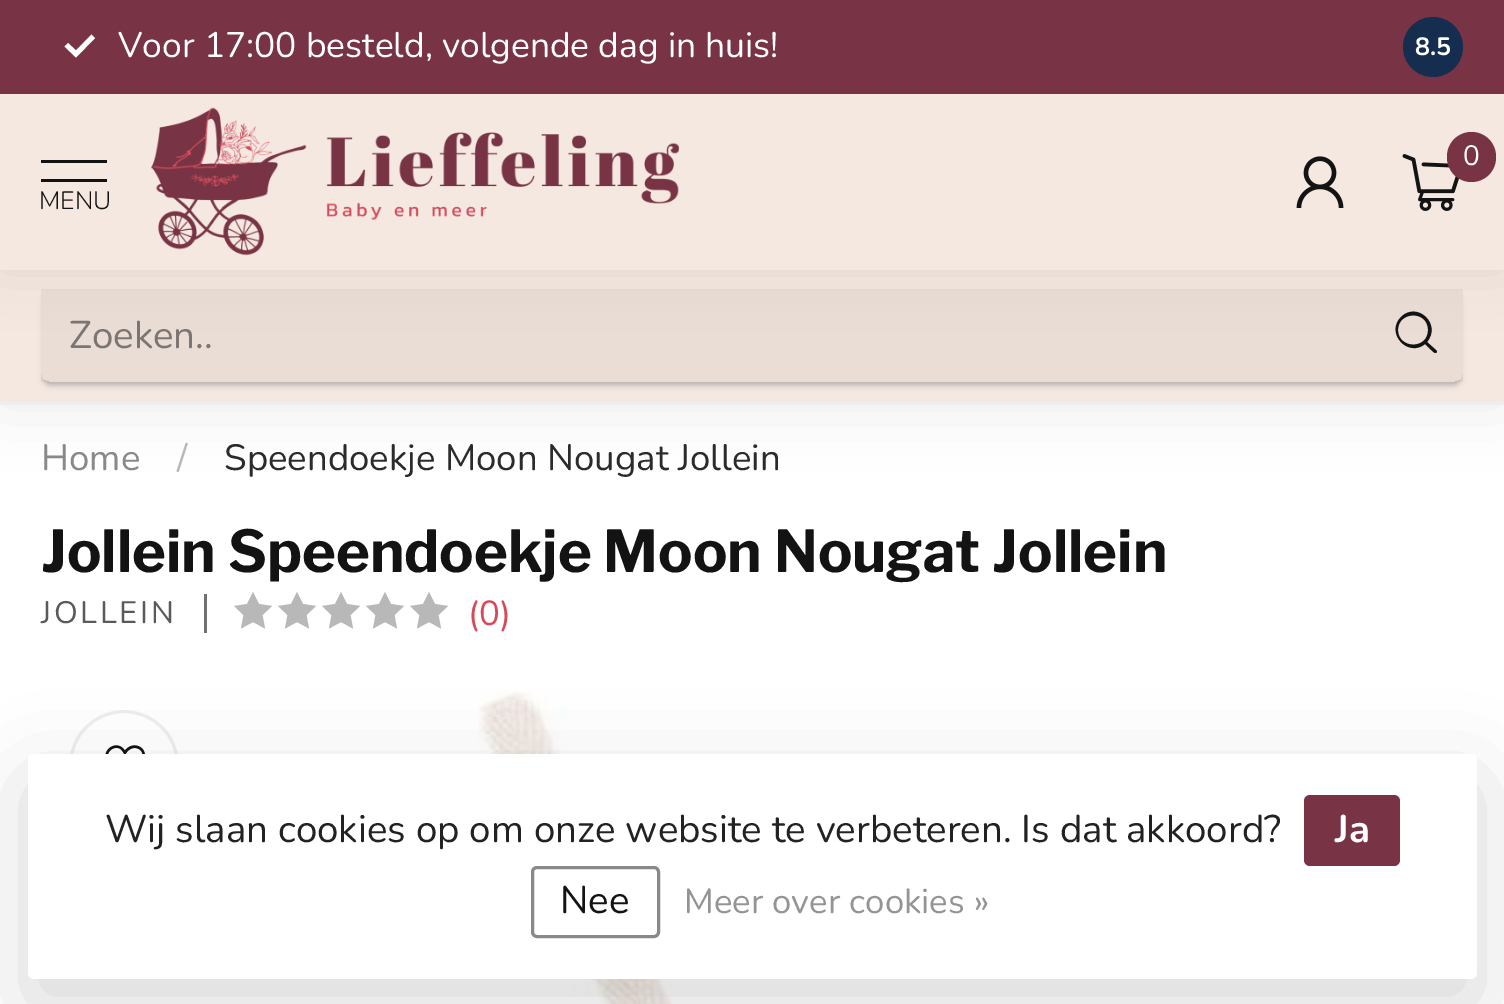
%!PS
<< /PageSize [1504 1004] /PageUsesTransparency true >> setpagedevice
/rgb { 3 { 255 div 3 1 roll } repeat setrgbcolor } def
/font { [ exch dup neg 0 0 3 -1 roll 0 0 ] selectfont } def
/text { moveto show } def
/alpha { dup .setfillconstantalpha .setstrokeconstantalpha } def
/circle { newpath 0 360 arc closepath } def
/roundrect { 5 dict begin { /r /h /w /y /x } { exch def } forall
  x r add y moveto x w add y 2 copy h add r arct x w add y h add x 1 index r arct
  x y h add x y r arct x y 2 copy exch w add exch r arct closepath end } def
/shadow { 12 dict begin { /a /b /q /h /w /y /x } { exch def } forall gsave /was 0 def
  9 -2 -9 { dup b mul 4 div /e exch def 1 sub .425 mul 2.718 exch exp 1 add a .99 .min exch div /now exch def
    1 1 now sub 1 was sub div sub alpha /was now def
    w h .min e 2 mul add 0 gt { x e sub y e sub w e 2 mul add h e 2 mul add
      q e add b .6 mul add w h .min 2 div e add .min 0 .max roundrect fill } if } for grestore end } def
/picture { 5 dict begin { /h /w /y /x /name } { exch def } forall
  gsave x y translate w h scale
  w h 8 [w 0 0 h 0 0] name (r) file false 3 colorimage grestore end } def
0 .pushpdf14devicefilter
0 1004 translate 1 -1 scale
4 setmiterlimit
255 255 255 rgb
0 0 1504 1004 rectfill
0 0 0 rgb
0 270 1504 134 0 30 0.08 shadow
245 232 225 rgb
0 270 1504 132 rectfill
gsave
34 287 moveto 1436 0 rlineto 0 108 rlineto -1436 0 rlineto closepath 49 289 moveto 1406 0 rlineto 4.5 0 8 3.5 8 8 rcurveto 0 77 rlineto 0 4.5 -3.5 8 -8 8 rcurveto -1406 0 rlineto -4.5 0 -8 -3.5 -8 -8 rcurveto 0 -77 rlineto 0 -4.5 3.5 -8 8 -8 rcurveto closepath eoclip newpath
155 155 155 rgb
44 297 1416 88 6 3 0.75 shadow
grestore
0.05 alpha
19 19 19 rgb
41 289 1422 93 rectfill
1 alpha
1437 351 moveto -10 -9 rlineto 15 -18 -10 -41 -26 -25 rcurveto -16 16 7 41 24 27 rcurveto 6 6 rlineto 1 0 4 5 6 2 rcurveto closepath 1398 330 moveto 0 -19 30 -20 30 0 rcurveto 0 20 -30 19 -30 0 rcurveto closepath fill
0 0 0 rgb
0 0 1504 270 0 27.5 0.07 shadow
245 232 225 rgb
0 94 1504 176 rectfill
120 52 69 rgb
0 0 1504 94 rectfill
255 255 255 rgb
76 57.5 moveto -11.5 -11 rlineto 3.5 -3.5 rlineto 8 7.5 rlineto 15.5 -16 rlineto 3.5 3.5 rlineto closepath fill
21 46 79 rgb
1433 47 30 circle fill
(img_01.rgb) 1296 156 48 52 picture
(img_02.rgb) 1402 154 58 57 picture
120 52 69 rgb
1447 132 49 50 24.5 roundrect fill
19 19 19 rgb
41 160 66 3 rectfill
41 179 66 3 rectfill
(img_03.rgb) 151 107 528 149 picture
238 238 238 rgb
0 402 1504 3 rectfill
113 113 113 rgb
204 594 3 39 rectfill
184 184 184 rgb
253 592 moveto 6 12 rlineto 13 2 rlineto -9.5 9 rlineto 2.5 13.5 rlineto -12 -6.5 rlineto -12 6.5 rlineto 2.5 -13.5 rlineto -9.5 -9 rlineto 13 -2 rlineto closepath fill
297 592 moveto 6 12 rlineto 13 2 rlineto -9.5 9 rlineto 2.5 13.5 rlineto -12 -6.5 rlineto -12 6.5 rlineto 2.5 -13.5 rlineto -9.5 -9 rlineto 13 -2 rlineto closepath fill
341 592 moveto 6 12 rlineto 13 2 rlineto -9.5 9 rlineto 2.5 13.5 rlineto -12 -6.5 rlineto -12 6.5 rlineto 2.5 -13.5 rlineto -9.5 -9 rlineto 13 -2 rlineto closepath fill
385 592 moveto 6 12 rlineto 13 2 rlineto -9.5 9 rlineto 2.5 13.5 rlineto -12 -6.5 rlineto -12 6.5 rlineto 2.5 -13.5 rlineto -9.5 -9 rlineto 13 -2 rlineto closepath fill
429 592 moveto 6 12 rlineto 13 2 rlineto -9.5 9 rlineto 2.5 13.5 rlineto -12 -6.5 rlineto -12 6.5 rlineto 2.5 -13.5 rlineto -9.5 -9 rlineto 13 -2 rlineto closepath fill
238 238 238 rgb
3 setlinewidth
124 765 53.5 circle stroke
(img_04.rgb) 105 745 40 9 picture
(img_05.rgb) 478 691 194 313 picture
0 0 0 rgb
28 781 1449 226 6 41 0.15 shadow
255 255 255 rgb
28 754 1449 225 6 roundrect fill
120 52 69 rgb
1304 795 96 71 6 roundrect fill
137 137 137 rgb
532.5 867.5 126 69 4.5 roundrect stroke
/Nunito-Regular 35.4 font
255 255 255 rgb
(Voor 17:00 besteld, volgende dag in huis!) 118 57 text
/Nunito-Bold 25 font
(8.5) 1415 55 text
/Nunito-Regular 28 font
(0) 1463 165 text
/Nunito-Light 25 font
19 19 19 rgb
(MENU) 39 209 text
/Nunito-Regular 38.5 font
124 118 115 rgb
(Zoeken..) 69 348 text
/Nunito-Regular 36.6 font
137 137 137 rgb
(Home) 41 470 text
184 184 184 rgb
(/) 177 470 text
43 43 43 rgb
(Speendoekje Moon Nougat Jollein) 224 470 text
/LibreFranklin-Bold 57.75 font
19 19 19 rgb
(Jollein Speendoekje Moon Nougat Jollein) 41 572 text
/Nunito-Regular 31 font
90 90 90 rgb
41 623 moveto 2.75 0 (JOLLEIN) ashow
/Nunito-Regular 34.75 font
212 76 92 rgb
(\(0\)) 468 625 text
/Nunito-Regular 38.5 font
34 34 34 rgb
(Wij slaan cookies op om onze website te verbeteren. Is dat akkoord?) 105 842 text
/Nunito-Bold 38.5 font
255 255 255 rgb
(Ja) 1335 842 text
/Nunito-Regular 38.5 font
19 19 19 rgb
(Nee) 560 913 text
/Nunito-Regular 34.75 font
148 148 148 rgb
(Meer over cookies ») 684 913 text
.poppdf14devicefilter showpage
